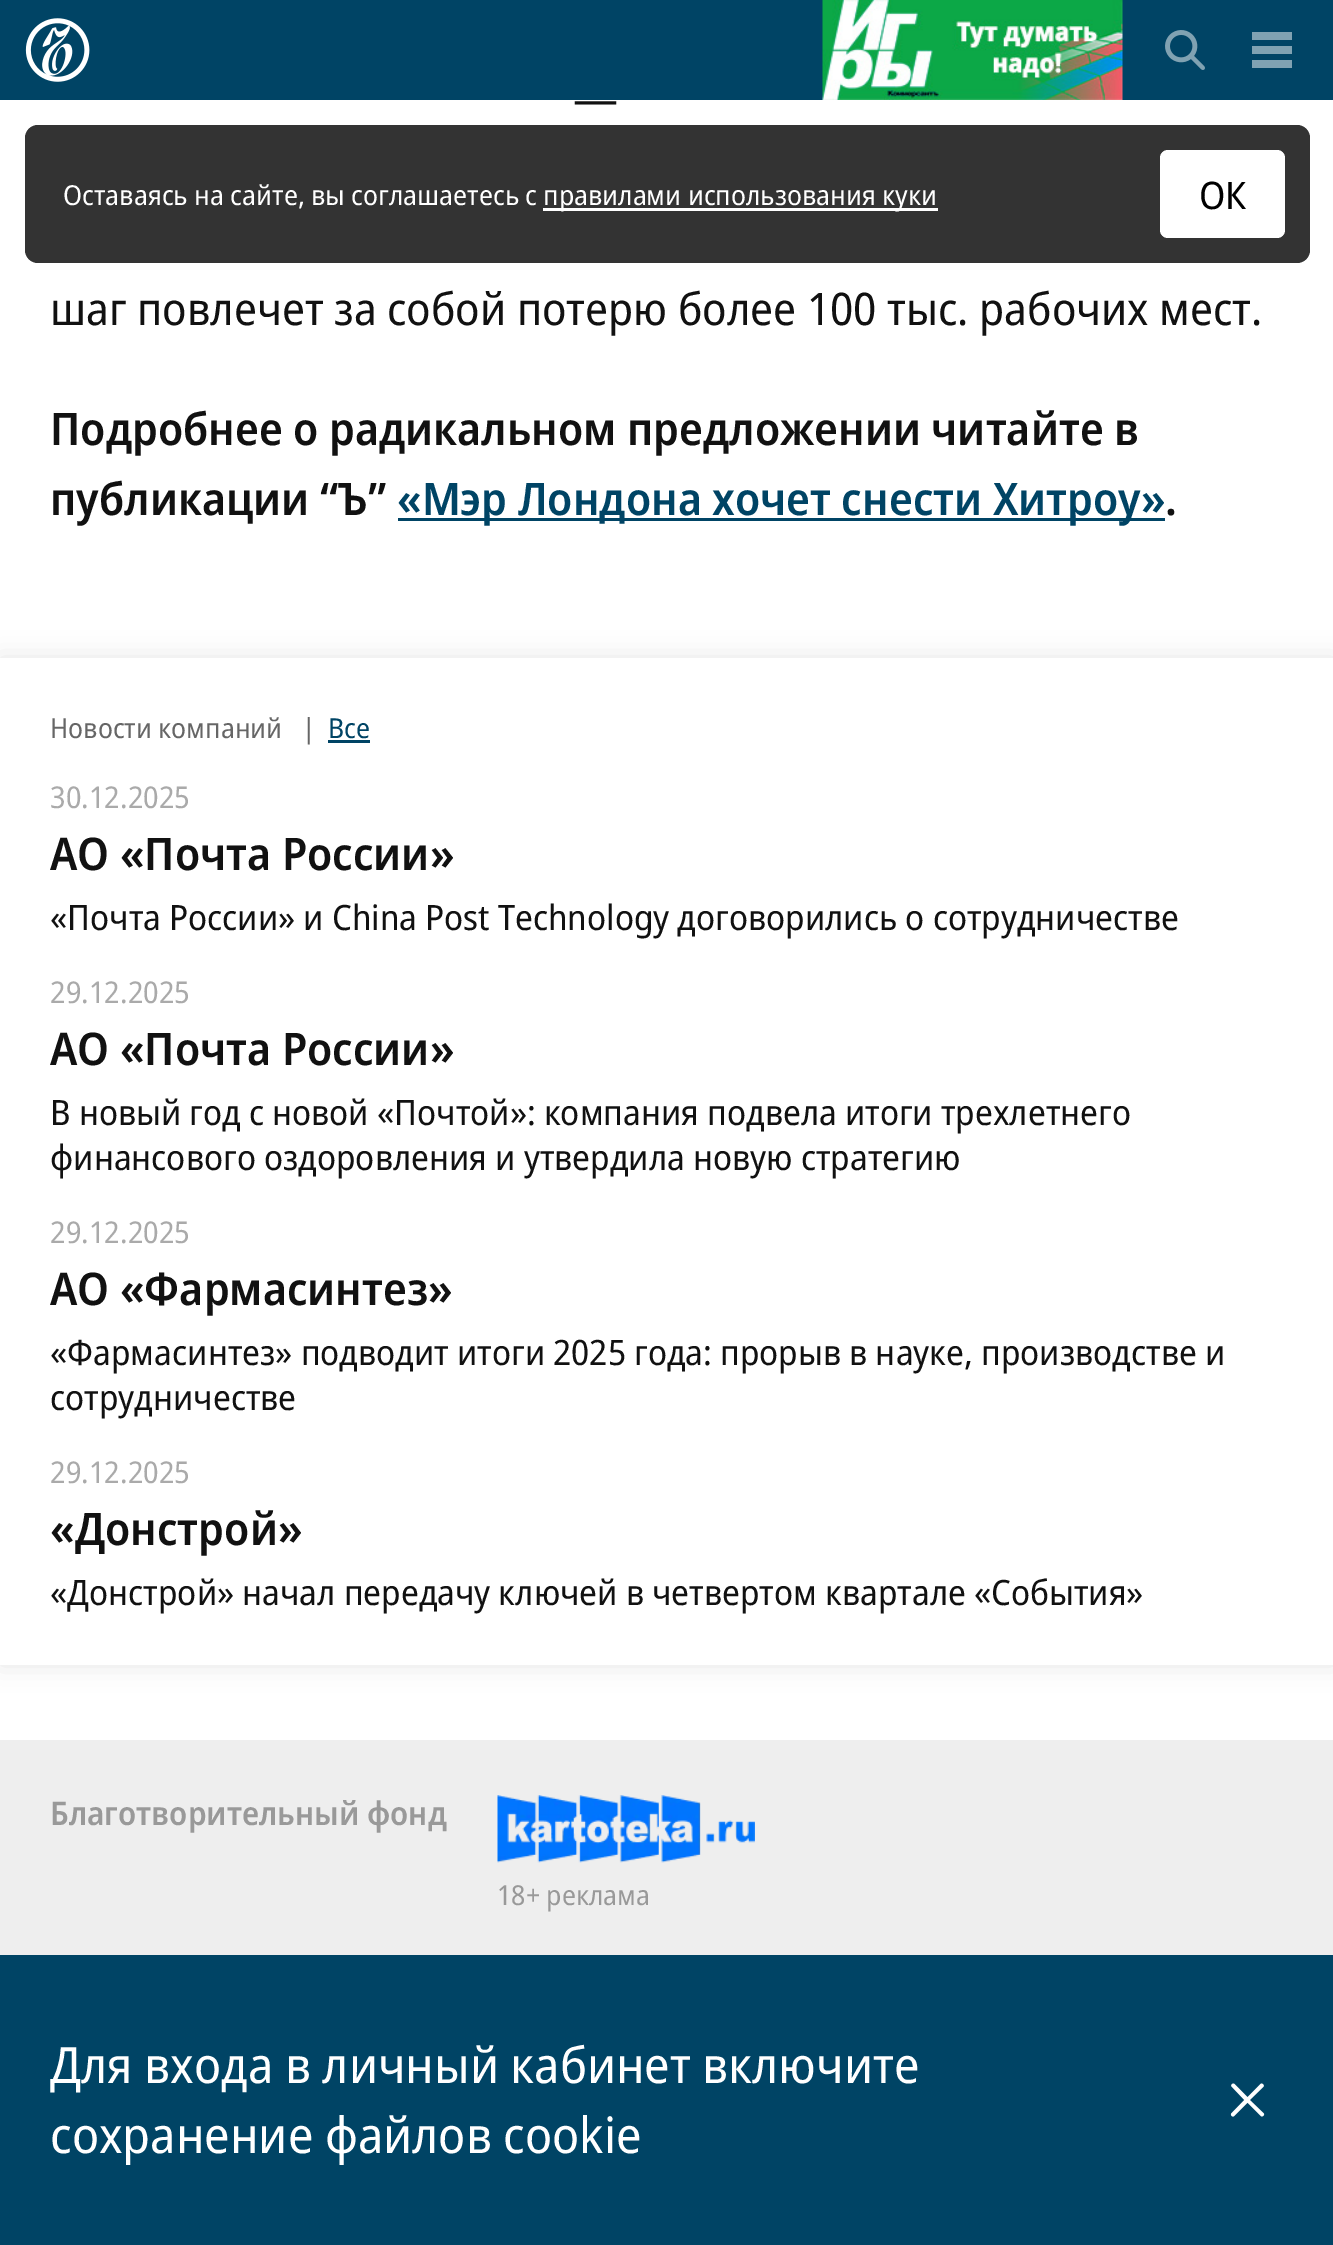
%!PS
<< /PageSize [1333 2245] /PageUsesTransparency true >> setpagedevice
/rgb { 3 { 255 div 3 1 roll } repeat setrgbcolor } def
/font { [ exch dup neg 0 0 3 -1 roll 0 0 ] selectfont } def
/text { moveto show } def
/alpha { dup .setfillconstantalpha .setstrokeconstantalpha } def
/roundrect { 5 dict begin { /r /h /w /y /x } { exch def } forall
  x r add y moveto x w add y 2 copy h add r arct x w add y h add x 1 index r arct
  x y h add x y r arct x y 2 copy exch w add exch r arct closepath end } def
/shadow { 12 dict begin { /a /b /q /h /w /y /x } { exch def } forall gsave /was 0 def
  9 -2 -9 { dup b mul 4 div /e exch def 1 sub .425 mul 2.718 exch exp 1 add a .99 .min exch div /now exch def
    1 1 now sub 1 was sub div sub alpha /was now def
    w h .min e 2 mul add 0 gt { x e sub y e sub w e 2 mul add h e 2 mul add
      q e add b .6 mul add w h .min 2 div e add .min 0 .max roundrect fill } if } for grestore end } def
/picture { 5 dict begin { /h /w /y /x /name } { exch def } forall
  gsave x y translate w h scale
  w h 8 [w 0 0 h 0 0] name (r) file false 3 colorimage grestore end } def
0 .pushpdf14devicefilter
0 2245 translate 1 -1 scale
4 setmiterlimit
255 255 255 rgb
0 0 1333 2245 rectfill
0 0 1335 100 0 12.5 0.2 shadow
0 68 101 rgb
0 0 1333 100 rectfill
(img_01.rgb) 25 18 65 64 picture
(img_02.rgb) 822 0 301 100 picture
(img_03.rgb) 1165 30 40 40 picture
128 162 178 rgb
1292 32 moveto 0 8 rlineto -40 0 rlineto 0 -8 rlineto closepath 1252 54 moveto 40 0 rlineto 0 -8 rlineto -40 0 rlineto closepath 1252 68 moveto 40 0 rlineto 0 -8 rlineto -40 0 rlineto closepath fill
0 68 101 rgb
398 518 767 3 rectfill
0.8 alpha
0 0 0 rgb
25 125 1285 138 13 roundrect fill
1 alpha
255 255 255 rgb
543 208 395 3 rectfill
1160 150 125 88 8 roundrect fill
gsave
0 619 moveto 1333 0 rlineto 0 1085 rlineto -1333 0 rlineto closepath 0 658 moveto 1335 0 rlineto 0 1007 rlineto -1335 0 rlineto closepath eoclip newpath
0 0 0 rgb
0 658 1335 1007 0 12.5 0.1 shadow
grestore
0 68 101 rgb
328 740 42 3 rectfill
238 238 238 rgb
0 1740 1333 215 rectfill
(img_04.rgb) 497 1795 258 68 picture
0 68 101 rgb
0 1955 1333 290 rectfill
(img_05.rgb) 1230 2083 35 34 picture
/NotoSans-Regular 45 font
17 17 17 rgb
(—) 573 115 text
(шаг повлечет за собой потерю более 100 тыс. рабочих мест.) 50 325 text
/NotoSans-SemiBold 45 font
(Подробнее о радикальном предложении читайте в) 50 445 text
(публикации “Ъ”) 50 515 text
0 68 101 rgb
(«Мэр Лондона хочет снести Хитроу») 397 515 text
17 17 17 rgb
(.) 1165 515 text
/NotoSans-Regular 27.5 font
255 255 255 rgb
(Оставаясь на сайте, вы соглашаетесь с) 63 205 text
(правилами использования куки) 543 205 text
/NotoSans-Regular 38 font
0 0 0 rgb
(ОК) 1199 209 text
/NotoSans-Regular 27.5 font
102 102 102 rgb
(Новости компаний) 50 738 text
(|) 302 738 text
0 68 101 rgb
(Все) 328 738 text
/NotoSans-Regular 30 font
170 170 170 rgb
(30.12.2025) 50 808 text
/NotoSans-SemiBold 45 font
17 17 17 rgb
(АО «Почта России») 50 870 text
/NotoSans-Regular 35 font
(«Почта России» и China Post Technology договорились о сотрудничестве) 50 930 text
/NotoSans-Regular 30 font
170 170 170 rgb
(29.12.2025) 50 1003 text
/NotoSans-SemiBold 45 font
17 17 17 rgb
(АО «Почта России») 50 1065 text
/NotoSans-Regular 35 font
(В новый год с новой «Почтой»: компания подвела итоги трехлетнего) 50 1125 text
(финансового оздоровления и утвердила новую стратегию) 50 1170 text
/NotoSans-Regular 30 font
170 170 170 rgb
(29.12.2025) 50 1243 text
/NotoSans-SemiBold 45 font
17 17 17 rgb
(АО «Фармасинтез») 50 1305 text
/NotoSans-Regular 35 font
(«Фармасинтез» подводит итоги 2025 года: прорыв в науке, производстве и) 50 1365 text
(сотрудничестве) 50 1410 text
/NotoSans-Regular 30 font
170 170 170 rgb
(29.12.2025) 50 1483 text
/NotoSans-SemiBold 45 font
17 17 17 rgb
(«Донстрой») 50 1545 text
/NotoSans-Regular 35 font
(«Донстрой» начал передачу ключей в четвертом квартале «События») 50 1605 text
/NotoSans-SemiBold 32.5 font
153 153 153 rgb
(Благотворительный фонд) 50 1825 text
/NotoSans-Regular 27.5 font
(18+ реклама) 497 1905 text
/NotoSans-Regular 50 font
255 255 255 rgb
(Для входа в личный кабинет включите) 50 2083 text
(сохранение файлов cookie) 50 2153 text
.poppdf14devicefilter showpage
